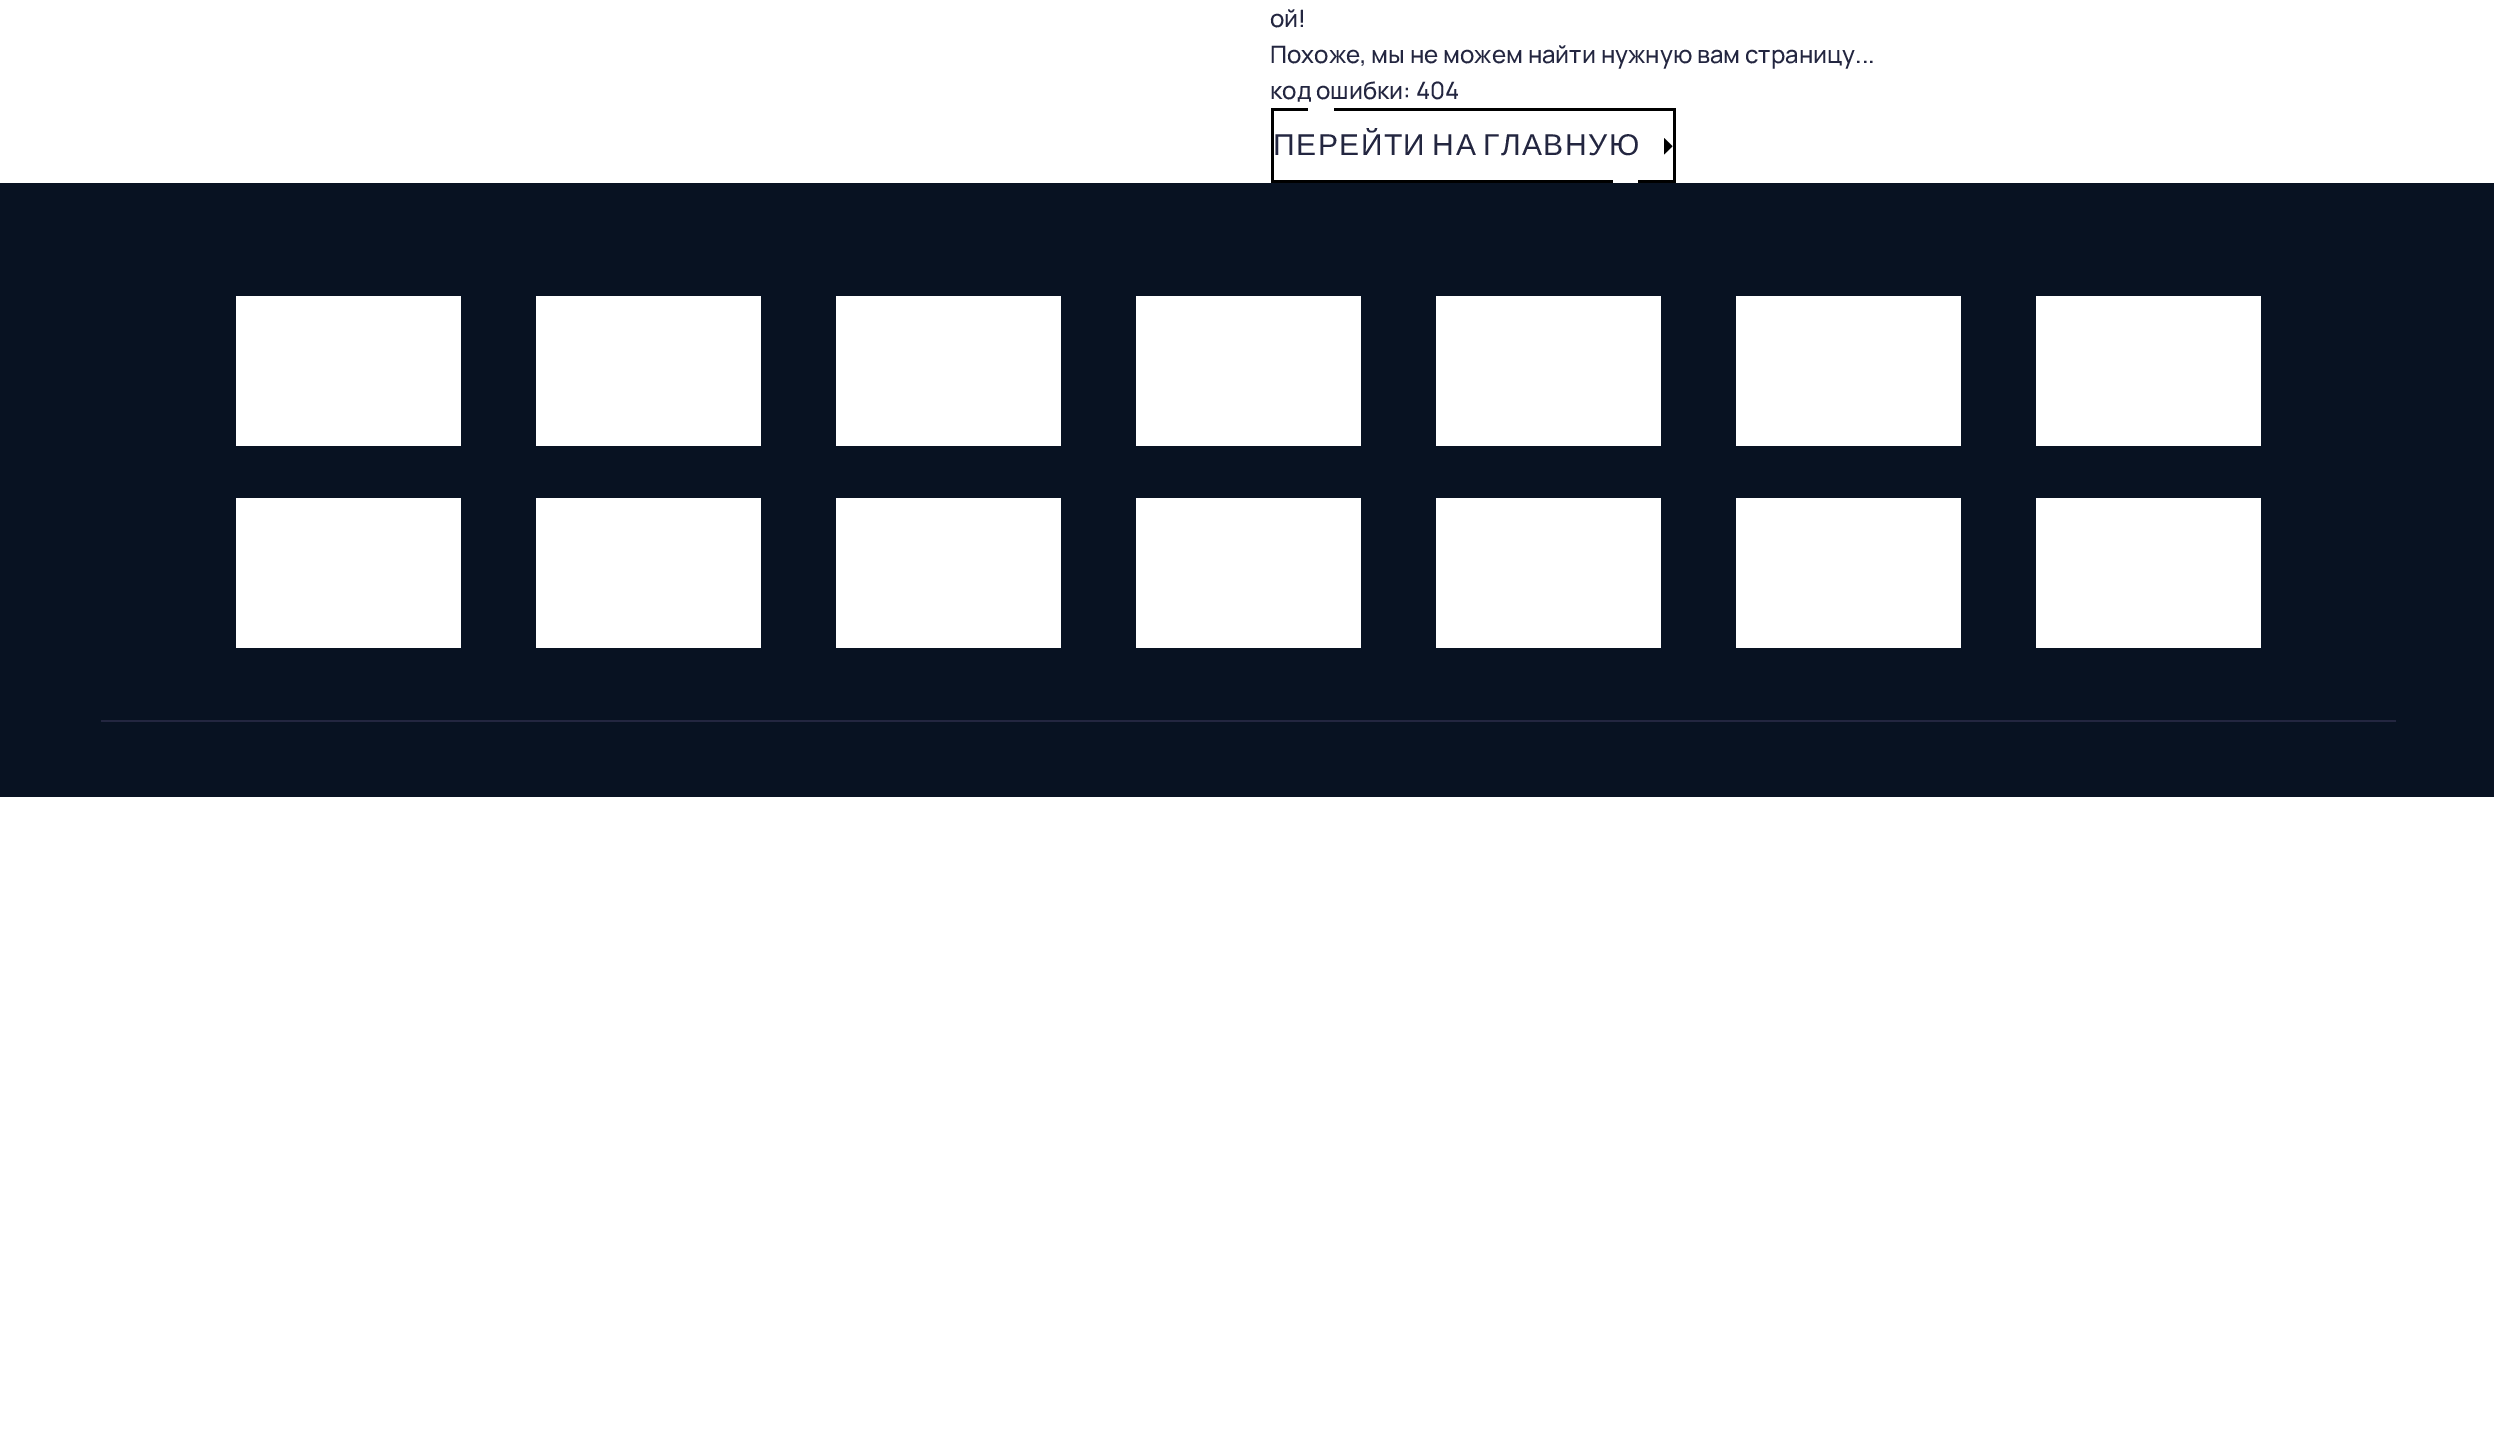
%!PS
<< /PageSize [2494 1451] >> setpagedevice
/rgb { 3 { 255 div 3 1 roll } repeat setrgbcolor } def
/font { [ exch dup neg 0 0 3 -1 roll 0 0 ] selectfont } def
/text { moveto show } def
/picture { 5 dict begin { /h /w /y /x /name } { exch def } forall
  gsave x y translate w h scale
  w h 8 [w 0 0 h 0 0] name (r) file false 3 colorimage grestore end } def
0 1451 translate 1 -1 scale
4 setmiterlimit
255 255 255 rgb
0 0 2494 1451 rectfill
0 0 0 rgb
1673 108 3 75 rectfill
1271 108 3 75 rectfill
1274 108 34 3 rectfill
1334 108 339 3 rectfill
(img_01.rgb) 1664 138 9 17 picture
1274 180 339 3 rectfill
1638 180 35 3 rectfill
8 18 34 rgb
0 183 2494 614 rectfill
35 38 64 rgb
101 720 2295 2 rectfill
255 255 255 rgb
236 296 225 150 rectfill
536 296 225 150 rectfill
836 296 225 150 rectfill
1136 296 225 150 rectfill
1436 296 225 150 rectfill
1736 296 225 150 rectfill
2036 296 225 150 rectfill
236 498 225 150 rectfill
536 498 225 150 rectfill
836 498 225 150 rectfill
1136 498 225 150 rectfill
1436 498 225 150 rectfill
1736 498 225 150 rectfill
2036 498 225 150 rectfill
/Manrope-Medium 24 font
35 38 64 rgb
(ой!) 1270 27 text
(Похоже, мы не можем найти нужную вам страницу...) 1270 63 text
(код ошибки: 404) 1270 99 text
/LiberationSans-Regular 30 font
1273 155 moveto -4 0 32 1.5 0 (ПЕРЕЙТИ НА ГЛАВНУЮ) awidthshow
showpage
